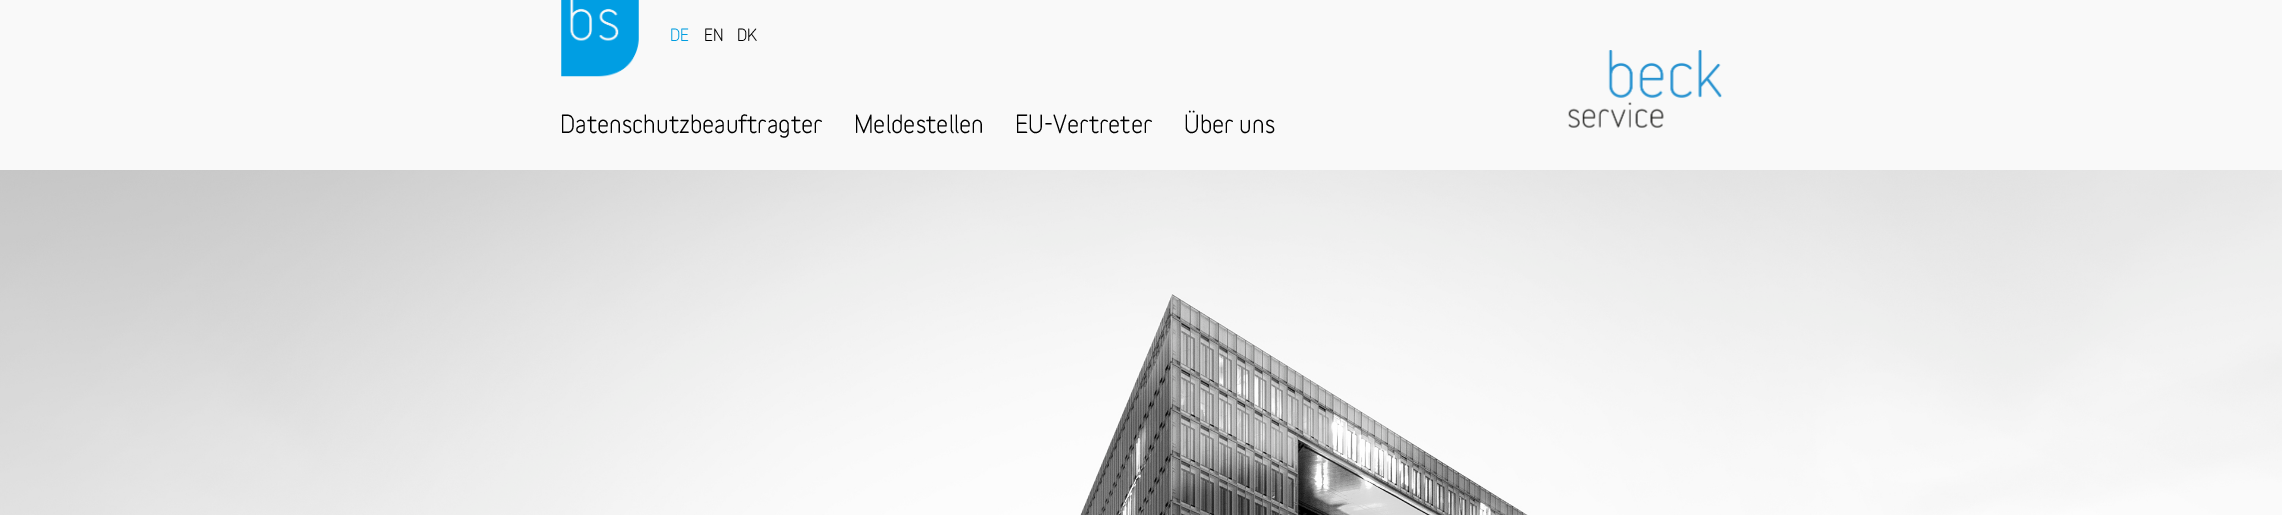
%!PS
<< /PageSize [2282 515] >> setpagedevice
/rgb { 3 { 255 div 3 1 roll } repeat setrgbcolor } def
/font { [ exch dup neg 0 0 3 -1 roll 0 0 ] selectfont } def
/text { moveto show } def
/picture { 5 dict begin { /h /w /y /x /name } { exch def } forall
  gsave x y translate w h scale
  w h 8 [w 0 0 h 0 0] name (r) file false 3 colorimage grestore end } def
0 515 translate 1 -1 scale
4 setmiterlimit
255 255 255 rgb
0 0 2282 515 rectfill
249 249 249 rgb
0 0 2282 170 rectfill
(img_01.rgb) 561 0 78 77 picture
(img_02.rgb) 1568 50 154 78 picture
(img_03.rgb) 0 170 2282 345 picture
/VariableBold-Bold 16 font
0 157 224 rgb
(DE) 670 41 text
0 0 0 rgb
(EN) 704 41 text
(DK) 737 41 text
/VariableBold-Bold 23.75 font
(Datenschutzbeauftragter) 560 133 text
(Meldestellen) 854 133 text
(EU-Vertreter) 1015 133 text
(Über uns) 1184 133 text
showpage
